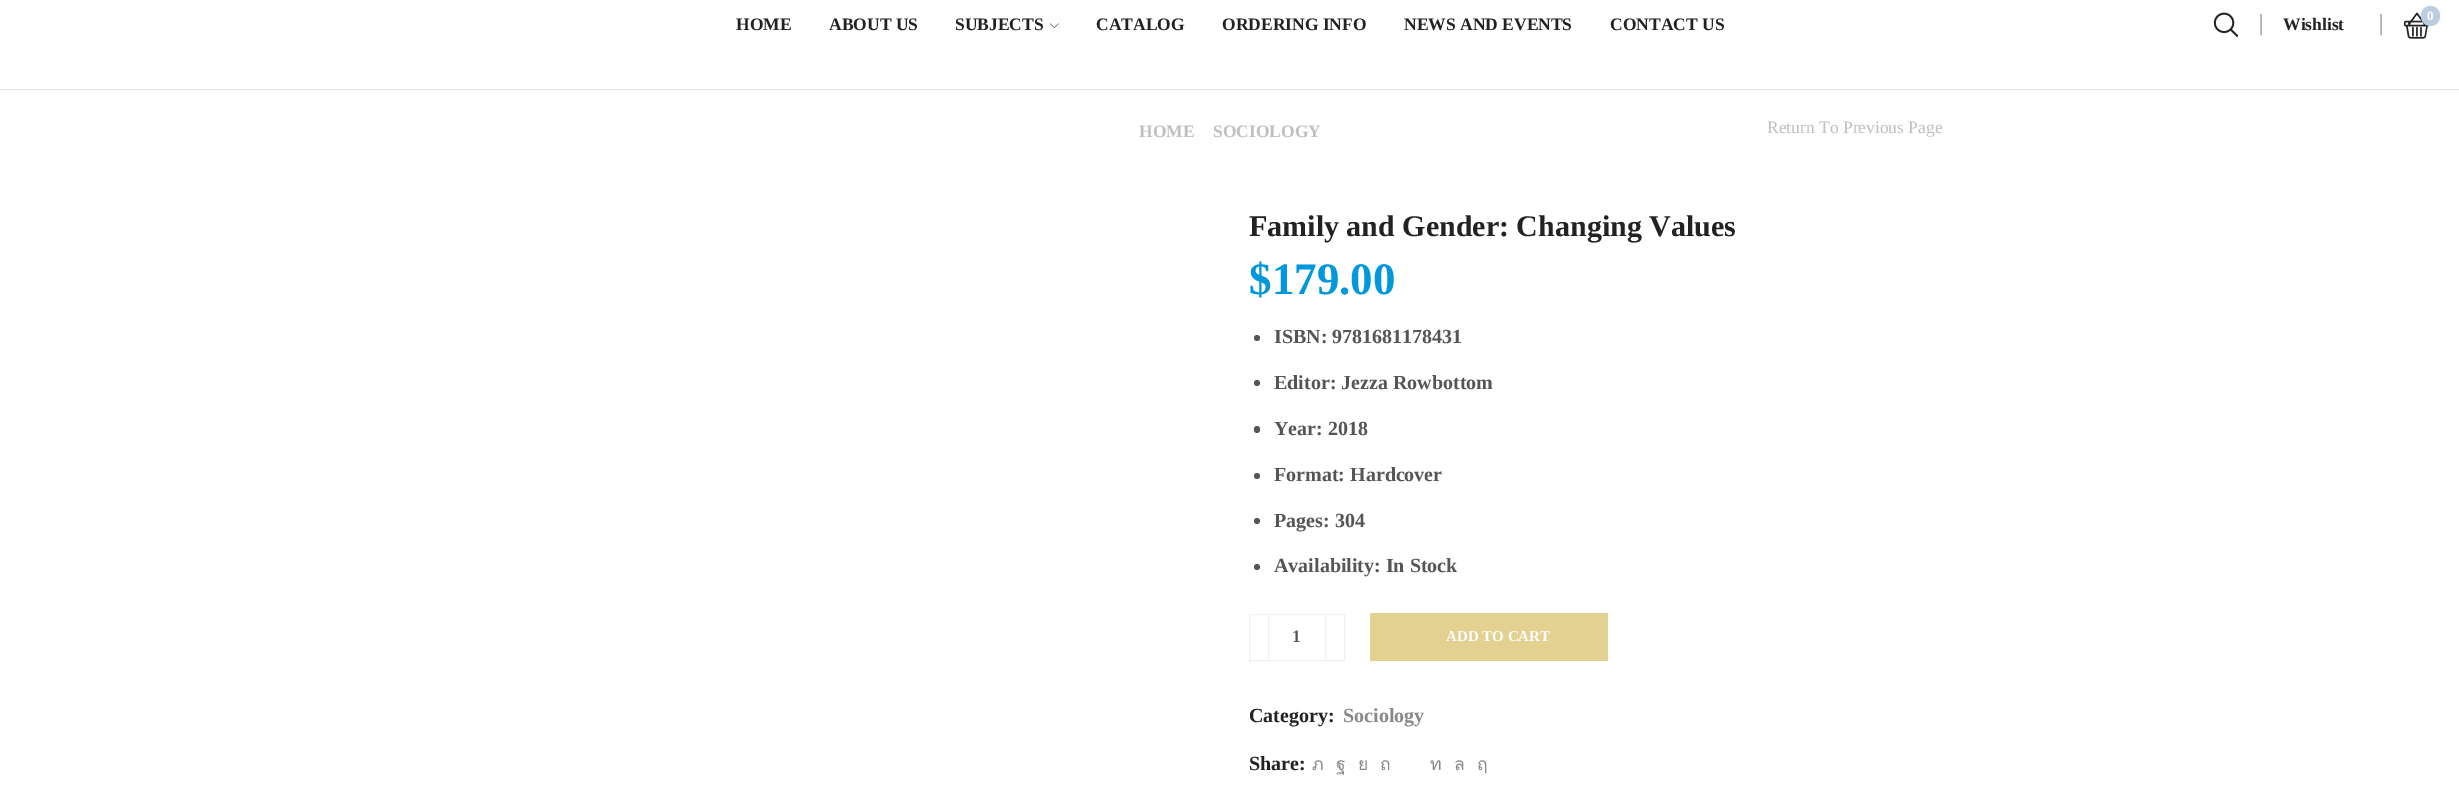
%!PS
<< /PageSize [2459 794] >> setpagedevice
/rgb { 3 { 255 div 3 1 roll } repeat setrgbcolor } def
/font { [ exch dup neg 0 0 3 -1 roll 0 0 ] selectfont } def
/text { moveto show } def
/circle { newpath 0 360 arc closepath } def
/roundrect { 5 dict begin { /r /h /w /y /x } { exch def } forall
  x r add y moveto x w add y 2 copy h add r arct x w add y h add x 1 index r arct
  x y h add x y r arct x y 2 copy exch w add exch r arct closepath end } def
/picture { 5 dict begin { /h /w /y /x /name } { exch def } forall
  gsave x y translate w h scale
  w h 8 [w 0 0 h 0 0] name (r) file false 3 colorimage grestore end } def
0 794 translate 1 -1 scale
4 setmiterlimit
255 255 255 rgb
0 0 2459 794 rectfill
225 225 225 rgb
0 89 2459 1 rectfill
(img_01.rgb) 1050 23 9 5 picture
(img_02.rgb) 2213 12 26 25 picture
(img_03.rgb) 2403 12 27 27 picture
186 205 225 rgb
2421 6 19 20 9.5 roundrect fill
85 85 85 rgb
1257 338 3 circle fill
1257 383 3 circle fill
1254 426 6 7 3 roundrect fill
1257 476 3 circle fill
1257 521 3 circle fill
1257 567 3 circle fill
241 241 241 rgb
1249.5 614.5 19 46 rectstroke
1269 614 56 1 rectfill
1269 660 56 1 rectfill
1325.5 614.5 19 46 rectstroke
227 209 145 rgb
1370 613 238 48 rectfill
/LiberationSerif-Bold 17.5 font
34 34 34 rgb
(HOME) 736 30 text
(ABOUT US) 829 30 text
(SUBJECTS) 955 30 text
(CATALOG) 1096 30 text
(ORDERING INFO) 1222 30 text
(NEWS AND EVENTS) 1404 30 text
(CONTACT US) 1610 30 text
145 145 145 rgb
(│) 2255 30 text
34 34 34 rgb
(Wishlist) 2283 30 text
145 145 145 rgb
(│) 2375 30 text
/LiberationSerif-Bold 13 font
255 255 255 rgb
(0) 2427 20 text
/LiberationSerif-Bold 17.5 font
191 191 191 rgb
(HOME) 1139 137 text
(SOCIOLOGY) 1213 137 text
/LiberationSerif-Regular 17.5 font
(Return To Previous Page) 1767 133 text
/LiberationSerif-Bold 30 font
34 34 34 rgb
(Family and Gender: Changing Values) 1249 236 text
/LiberationSerif-Bold 45 font
0 152 218 rgb
($179.00) 1249 294 text
/LiberationSerif-Bold 20 font
85 85 85 rgb
(ISBN: 9781681178431) 1274 343 text
(Editor: Jezza Rowbottom) 1274 389 text
(Year: 2018) 1274 435 text
(Format: Hardcover) 1274 481 text
(Pages: 304) 1274 527 text
(Availability: In Stock) 1274 572 text
/LiberationSerif-Bold 17.5 font
(1) 1292 642 text
/LiberationSerif-Bold 15 font
255 255 255 rgb
(ADD TO CART) 1446 641 text
/LiberationSerif-Bold 20 font
34 34 34 rgb
(Category:) 1249 722 text
136 136 136 rgb
(Sociology) 1343 722 text
34 34 34 rgb
(Share:) 1249 770 text
/Loma-Regular 17.5 font
136 136 136 rgb
(ภ) 1312 770 text
(ฐ) 1336 770 text
(ย) 1358 770 text
(ถ) 1380 770 text
(ท) 1430 770 text
(ล) 1454 770 text
(ฤ) 1477 770 text
showpage
